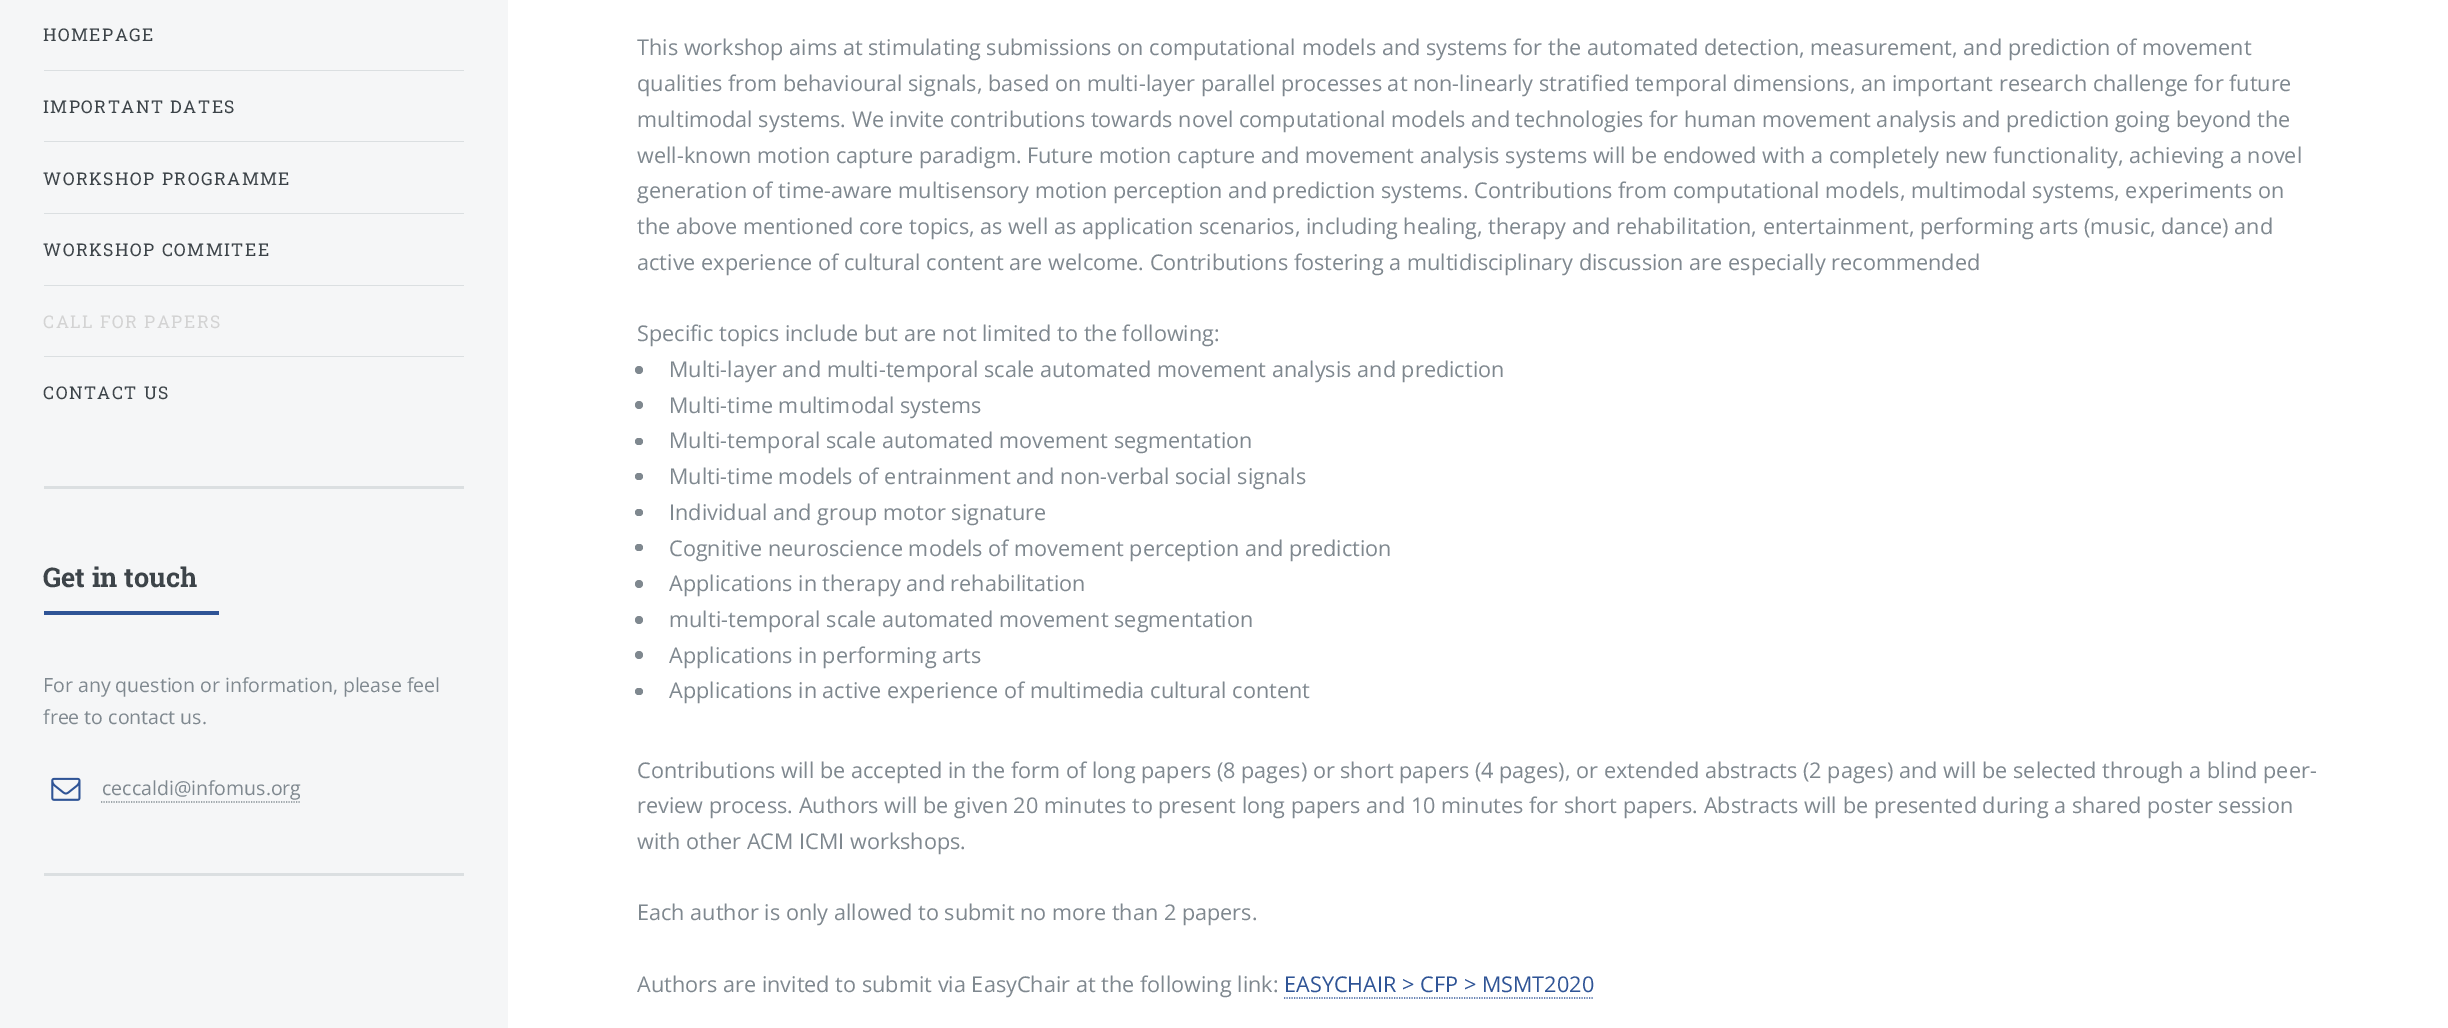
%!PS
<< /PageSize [2448 1028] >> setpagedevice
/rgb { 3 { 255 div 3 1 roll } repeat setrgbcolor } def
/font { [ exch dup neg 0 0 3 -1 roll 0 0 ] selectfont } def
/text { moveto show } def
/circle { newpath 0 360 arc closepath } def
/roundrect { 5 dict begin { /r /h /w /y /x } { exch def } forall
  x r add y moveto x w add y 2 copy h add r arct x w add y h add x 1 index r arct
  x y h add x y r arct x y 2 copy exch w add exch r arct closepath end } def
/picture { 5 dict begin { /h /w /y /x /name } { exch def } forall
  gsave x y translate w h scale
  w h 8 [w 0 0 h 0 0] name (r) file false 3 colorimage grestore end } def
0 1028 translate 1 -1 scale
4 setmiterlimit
255 255 255 rgb
0 0 2448 1028 rectfill
245 246 247 rgb
0 0 508 1028 rectfill
219 223 225 rgb
44 486 420 3 rectfill
44 70 420 1 rectfill
44 141 420 1 rectfill
44 213 420 1 rectfill
44 285 420 1 rectfill
44 356 420 1 rectfill
44 873 420 3 rectfill
47 84 150 rgb
44 611 175 4 rectfill
(img_01.rgb) 51 777 30 24 picture
127 136 143 rgb
1.2 setlinewidth
[1.25 1.25] 0 setdash
101 802 moveto 200 0 rlineto stroke
639 370 4 circle fill
639 405 4 circle fill
635 438 8 7 3.5 roundrect fill
635 473 8 7 3.5 roundrect fill
635 509 8 7 3.5 roundrect fill
635 544 8 7 3.5 roundrect fill
639 584 4 circle fill
639 620 4 circle fill
639 655 4 circle fill
635 688 8 7 3.5 roundrect fill
47 84 150 rgb
1284 998 moveto 310 0 rlineto stroke
/RobotoSlab-Regular 17.5 font
61 68 73 rgb
43 41 moveto 1.5 0 (HOMEPAGE) ashow
43 113 moveto 1.5 0 (IMPORTANT DATES) ashow
43 185 moveto 1.5 0 (WORKSHOP PROGRAMME) ashow
43 256 moveto 1.5 0 (WORKSHOP COMMITEE) ashow
211 211 211 rgb
43 328 moveto 1.5 0 (CALL FOR PAPERS) ashow
61 68 73 rgb
43 399 moveto 1.5 0 (CONTACT US) ashow
/RobotoSlab-Bold 27 font
(Get in touch) 43 587 text
/OpenSans-Regular 19.5 font
127 136 143 rgb
(For any question or information, please feel) 43 692 text
(free to contact us.) 43 724 text
(ceccaldi@infomus.org) 102 795 text
/OpenSans-Regular 21.67 font
(This workshop aims at stimulating submissions on computational models and systems for the automated detection,) 637 55 text
(measurement, and prediction of movement) 1810 55 text
(qualities from behavioural signals, based on multi-layer parallel processes at non-linearly stratified temporal dimensions, an important research challenge for future) 637 91 text
(multimodal systems. We invite contributions towards novel computational models and technologies for human movement analysis and prediction going beyond the) 637 127 text
(well-known motion capture paradigm. Future motion capture and movement analysis systems will be endowed with a completely new functionality, achieving a novel) 637 163 text
(generation of time-aware multisensory motion perception and prediction systems. Contributions from computational models, multimodal systems, experiments on) 637 198 text
(the above mentioned core topics, as well as application scenarios, including healing, therapy and rehabilitation, entertainment, performing arts \(music, dance\) and) 637 234 text
(active experience of cultural content are welcome. Contributions fostering a multidisciplinary discussion are especially recommended) 637 270 text
(Specific topics include but are not limited to the following:) 637 341 text
(Multi-layer and multi-temporal scale automated movement analysis and prediction) 669 377 text
(Multi-time multimodal systems) 669 413 text
(Multi-temporal scale automated movement segmentation) 669 448 text
(Multi-time models of entrainment and non-verbal social signals) 669 484 text
(Individual and group motor signature) 669 520 text
(Cognitive neuroscience models of movement perception and prediction) 669 556 text
(Applications in therapy and rehabilitation) 669 591 text
(multi-temporal scale automated movement segmentation) 669 627 text
(Applications in performing arts) 669 663 text
(Applications in active experience of multimedia cultural content) 669 698 text
(Contributions will be accepted in the form of long papers \(8 pages\) or short papers \(4 pages\), or extended abstracts \(2 pages\) and will be selected through a blind peer-) 637 778 text
(review process. Authors will be given 20 minutes to present long papers and 10 minutes for short papers. Abstracts will be presented during a shared poster session) 637 813 text
(with other ACM ICMI workshops.) 637 849 text
(Each author is only allowed to submit no more than 2 papers.) 637 920 text
(Authors are invited to submit via EasyChair at the following link:) 637 992 text
47 84 150 rgb
(EASYCHAIR > CFP > MSMT2020) 1284 992 text
showpage
